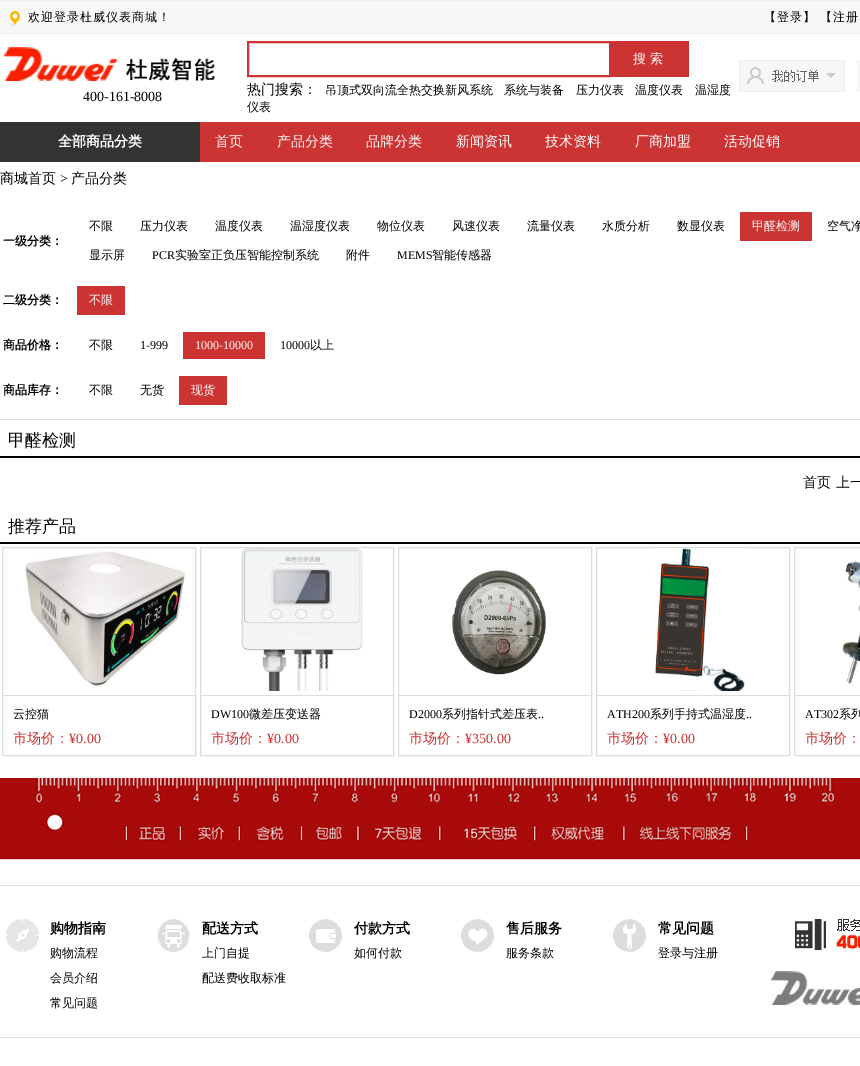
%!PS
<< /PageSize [860 1066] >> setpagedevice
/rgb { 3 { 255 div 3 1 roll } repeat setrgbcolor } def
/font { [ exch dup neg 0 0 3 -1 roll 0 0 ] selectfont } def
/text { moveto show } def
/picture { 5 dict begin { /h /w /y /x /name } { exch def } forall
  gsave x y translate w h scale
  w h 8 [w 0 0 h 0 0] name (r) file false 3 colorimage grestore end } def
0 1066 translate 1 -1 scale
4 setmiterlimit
255 255 255 rgb
0 0 860 1066 rectfill
247 247 247 rgb
0 1 860 32 rectfill
238 238 238 rgb
0 0 860 1 rectfill
0 33 860 1 rectfill
(img_01.rgb) 10 11 10 16 picture
204 51 51 rgb
2 setlinewidth
248 42 362 34 rectstroke
611 41 78 36 rectfill
(img_02.rgb) 739 60 106 32 picture
247 247 247 rgb
857 60 3 32 rectfill
(img_03.rgb) 3 43 212 38 picture
51 51 51 rgb
0 122 200 40 rectfill
204 51 51 rgb
200 122 660 40 rectfill
740 212 72 29 rectfill
77 286 48 29 rectfill
183 332 82 27 rectfill
179 376 48 29 rectfill
221 221 221 rgb
0 419 860 1 rectfill
0 0 0 rgb
0 456 860 2 rectfill
0 542 860 2 rectfill
221 221 221 rgb
1 setlinewidth
2.5 547.5 193 208 rectstroke
(img_04.rgb) 25 551 160 135 picture
3 695 192 1 rectfill
200.5 547.5 193 208 rectstroke
(img_05.rgb) 241 548 122 143 picture
201 695 192 1 rectfill
398.5 547.5 193 208 rectstroke
(img_06.rgb) 451 570 96 105 picture
399 695 192 1 rectfill
596.5 547.5 193 208 rectstroke
(img_07.rgb) 655 548 90 143 picture
597 695 192 1 rectfill
794.5 547.5 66 208 rectstroke
(img_08.rgb) 842 561 18 124 picture
795 695 65 1 rectfill
(img_09.rgb) 0 778 860 82 picture
0 885 860 1 rectfill
0 1037 860 1 rectfill
(img_10.rgb) 6 919 33 33 picture
(img_11.rgb) 157 919 33 33 picture
(img_12.rgb) 309 919 33 33 picture
(img_13.rgb) 461 919 33 33 picture
(img_14.rgb) 613 919 33 33 picture
(img_15.rgb) 771 919 89 86 picture
/WenQuanYiZenHei-Medium 12 font
0 0 0 rgb
28 21 moveto 1 0 (欢迎登录杜威仪表商城！) ashow
764 21 moveto 1 0 (【登录】) ashow
820 21 moveto 1 0 (【注册) ashow
/WenQuanYiZenHei-Medium 13 font
255 255 255 rgb
(搜 索) 633 63 text
/WenQuanYiZenHei-Medium 14 font
0 0 0 rgb
(热门搜索：) 247 94 text
/WenQuanYiZenHei-Medium 12 font
(吊顶式双向流全热交换新风系统) 325 94 text
(系统与装备) 504 94 text
(压力仪表) 576 94 text
(温度仪表) 635 94 text
(温湿度) 695 94 text
(仪表) 247 111 text
/LiberationSerif-Regular 14 font
(400-161-8008) 83 101 text
/WenQuanYiZenHei-Bold 14 font
255 255 255 rgb
(全部商品分类) 58 146 text
/WenQuanYiZenHei-Medium 14 font
(首页) 215 146 text
(产品分类) 277 146 text
(品牌分类) 366 146 text
(新闻资讯) 456 146 text
(技术资料) 545 146 text
(厂商加盟) 635 146 text
(活动促销) 724 146 text
0 0 0 rgb
(商城首页) 0 183 text
/LiberationSerif-Regular 14 font
(>) 60 183 text
/WenQuanYiZenHei-Medium 14 font
(产品分类) 71 183 text
/WenQuanYiZenHei-Bold 12 font
(一级分类：) 3 245 text
/WenQuanYiZenHei-Medium 12 font
(不限) 89 230 text
(压力仪表) 140 230 text
(温度仪表) 215 230 text
(温湿度仪表) 290 230 text
(物位仪表) 377 230 text
(风速仪表) 452 230 text
(流量仪表) 527 230 text
(水质分析) 602 230 text
(数显仪表) 677 230 text
255 255 255 rgb
(甲醛检测) 752 230 text
0 0 0 rgb
(空气净) 827 230 text
(显示屏) 89 259 text
/LiberationSerif-Regular 12 font
(PCR) 152 259 text
/WenQuanYiZenHei-Medium 12 font
(实验室正负压智能控制系统) 175 259 text
(附件) 346 259 text
/LiberationSerif-Regular 12 font
(MEMS) 397 259 text
/WenQuanYiZenHei-Medium 12 font
(智能传感器) 432 259 text
/WenQuanYiZenHei-Bold 12 font
(二级分类：) 3 304 text
/WenQuanYiZenHei-Medium 12 font
255 255 255 rgb
(不限) 89 304 text
/WenQuanYiZenHei-Bold 12 font
0 0 0 rgb
(商品价格：) 3 349 text
/WenQuanYiZenHei-Medium 12 font
(不限) 89 349 text
/LiberationSerif-Regular 12 font
(1-999) 140 349 text
255 255 255 rgb
(1000-10000) 195 349 text
0 0 0 rgb
(10000) 280 349 text
/WenQuanYiZenHei-Medium 12 font
(以上) 310 349 text
/WenQuanYiZenHei-Bold 12 font
(商品库存：) 3 394 text
/WenQuanYiZenHei-Medium 12 font
(不限) 89 394 text
(无货) 140 394 text
255 255 255 rgb
(现货) 191 394 text
/WenQuanYiZenHei-Medium 17 font
0 0 0 rgb
(甲醛检测) 8 446 text
/WenQuanYiZenHei-Medium 14 font
(首页) 803 487 text
(上一) 836 487 text
/WenQuanYiZenHei-Medium 17 font
(推荐产品) 8 532 text
/WenQuanYiZenHei-Medium 12 font
(云控猫) 13 718 text
/WenQuanYiZenHei-Medium 14 font
204 51 51 rgb
(市场价：) 13 743 text
/LiberationSerif-Regular 14 font
(¥0.00) 69 743 text
/LiberationSerif-Regular 12 font
0 0 0 rgb
(DW100) 211 718 text
/WenQuanYiZenHei-Medium 12 font
(微差压变送器) 249 718 text
/WenQuanYiZenHei-Medium 14 font
204 51 51 rgb
(市场价：) 211 743 text
/LiberationSerif-Regular 14 font
(¥0.00) 267 743 text
/LiberationSerif-Regular 12 font
0 0 0 rgb
(D2000) 409 718 text
/WenQuanYiZenHei-Medium 12 font
(系列指针式差压表) 442 718 text
/LiberationSerif-Regular 12 font
(..) 538 718 text
/WenQuanYiZenHei-Medium 14 font
204 51 51 rgb
(市场价：) 409 743 text
/LiberationSerif-Regular 14 font
(¥350.00) 465 743 text
/LiberationSerif-Regular 12 font
0 0 0 rgb
(ATH200) 607 718 text
/WenQuanYiZenHei-Medium 12 font
(系列手持式温湿度) 650 718 text
/LiberationSerif-Regular 12 font
(..) 746 718 text
/WenQuanYiZenHei-Medium 14 font
204 51 51 rgb
(市场价：) 607 743 text
/LiberationSerif-Regular 14 font
(¥0.00) 663 743 text
/LiberationSerif-Regular 12 font
0 0 0 rgb
(AT302) 805 718 text
/WenQuanYiZenHei-Medium 12 font
(系列) 839 718 text
/WenQuanYiZenHei-Medium 14 font
204 51 51 rgb
(市场价：) 805 743 text
/WenQuanYiZenHei-Bold 14 font
0 0 0 rgb
(购物指南) 50 933 text
/WenQuanYiZenHei-Medium 12 font
(购物流程) 50 957 text
(会员介绍) 50 982 text
(常见问题) 50 1007 text
/WenQuanYiZenHei-Bold 14 font
(配送方式) 202 933 text
/WenQuanYiZenHei-Medium 12 font
(上门自提) 202 957 text
(配送费收取标准) 202 982 text
/WenQuanYiZenHei-Bold 14 font
(付款方式) 354 933 text
/WenQuanYiZenHei-Medium 12 font
(如何付款) 354 957 text
/WenQuanYiZenHei-Bold 14 font
(售后服务) 506 933 text
/WenQuanYiZenHei-Medium 12 font
(服务条款) 506 957 text
/WenQuanYiZenHei-Bold 14 font
(常见问题) 658 933 text
/WenQuanYiZenHei-Medium 12 font
(登录与注册) 658 957 text
showpage
